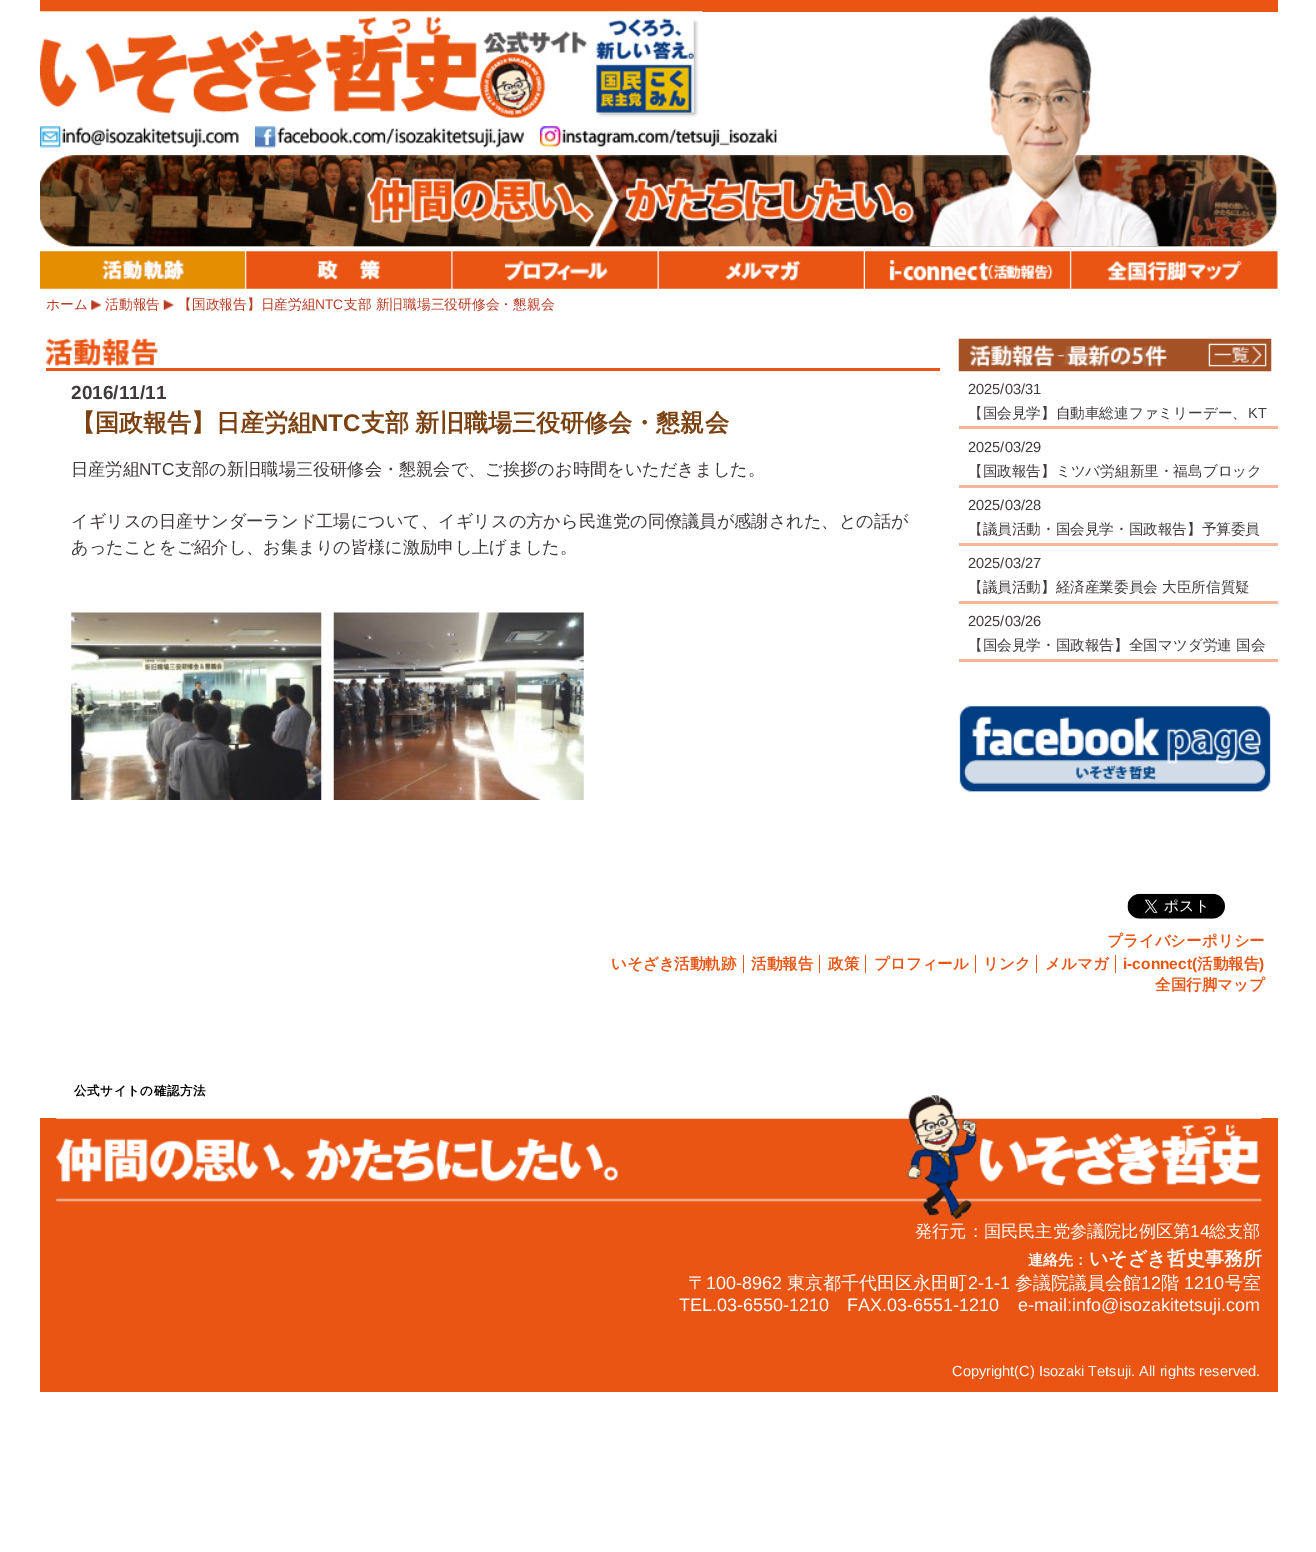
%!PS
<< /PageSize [1316 1552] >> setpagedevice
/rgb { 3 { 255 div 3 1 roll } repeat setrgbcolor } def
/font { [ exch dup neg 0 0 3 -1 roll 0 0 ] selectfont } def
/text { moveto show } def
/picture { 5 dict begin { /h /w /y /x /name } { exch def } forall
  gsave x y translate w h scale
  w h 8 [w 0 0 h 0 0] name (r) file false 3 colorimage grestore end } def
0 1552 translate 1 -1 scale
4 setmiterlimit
255 255 255 rgb
0 0 1316 1552 rectfill
234 85 20 rgb
40 0 1238 12 rectfill
(img_01.rgb) 40 11 663 107 picture
(img_06.rgb) 40 155 1238 92 picture
(img_02.rgb) 928 11 231 236 picture
(img_03.rgb) 40 126 199 22 picture
(img_04.rgb) 255 126 270 22 picture
(img_05.rgb) 540 126 238 22 picture
(img_07.rgb) 40 251 206 38 picture
(img_08.rgb) 246 251 206 38 picture
(img_09.rgb) 452 251 206 38 picture
(img_10.rgb) 658 251 206 38 picture
(img_11.rgb) 865 251 206 38 picture
(img_12.rgb) 1071 251 207 38 picture
(img_13.rgb) 91 300 11 10 picture
(img_14.rgb) 163 300 11 10 picture
46 368 894 3 rectfill
(img_15.rgb) 46 338 112 29 picture
(img_16.rgb) 71 612 251 188 picture
(img_17.rgb) 333 612 251 188 picture
(img_18.rgb) 958 338 314 34 picture
(img_19.rgb) 1208 343 59 24 picture
246 181 153 rgb
959 426 319 3 rectfill
959 485 319 3 rectfill
959 543 319 3 rectfill
959 601 319 3 rectfill
959 659 319 3 rectfill
(img_20.rgb) 958 705 314 88 picture
(img_21.rgb) 1127 893 98 26 picture
234 85 20 rgb
743 955 1 18 rectfill
819 955 1 18 rectfill
865 955 1 18 rectfill
975 955 1 18 rectfill
1036 955 1 18 rectfill
1115 955 1 18 rectfill
40 1118 1238 274 rectfill
(img_22.rgb) 56 1118 1206 84 picture
(img_23.rgb) 56 1138 562 44 picture
(img_24.rgb) 907 1095 355 124 picture
/WenQuanYiZenHei-Medium 13.75 font
185 58 33 rgb
(ホーム) 46 309 text
(活動報告) 105 309 text
(【国政報告】日産労組) 178 309 text
/LiberationSans-Regular 13.75 font
(NTC) 315 309 text
/WenQuanYiZenHei-Medium 13.75 font
(支部 新旧職場三役研修会・懇親会) 344 309 text
/LiberationSans-Bold 19 font
62 58 57 rgb
(2016/11/11) 71 399 text
/WenQuanYiZenHei-Bold 24.1 font
124 65 17 rgb
(【国政報告】日産労組) 71 431 text
/LiberationSans-Bold 24.1 font
(NTC) 311 431 text
/WenQuanYiZenHei-Bold 24.1 font
361 431 moveto -1 0 32 (支部 新旧職場三役研修会・懇親会) widthshow
/WenQuanYiZenHei-Medium 17.2 font
62 58 57 rgb
(日産労組) 71 475 text
/LiberationSans-Regular 17.2 font
(NTC) 139 475 text
/WenQuanYiZenHei-Medium 17.2 font
(支部の新旧職場三役研修会・懇親会で、ご挨拶のお時間をいただきました。) 175 475 text
(イギリスの日産サンダーランド工場について、イギリスの方から民進党の同僚議員が感謝された、との話が) 71 527 text
(あったことをご紹介し、お集まりの皆様に激励申し上げました。) 71 553 text
/LiberationSans-Regular 14.6 font
(2025/03/31) 968 394 text
/WenQuanYiZenHei-Medium 14.6 font
(【国会見学】自動車総連ファミリーデー、) 968 418 text
/LiberationSans-Regular 14.6 font
(KT) 1248 418 text
(2025/03/29) 968 452 text
/WenQuanYiZenHei-Medium 14.6 font
(【国政報告】ミツバ労組新里・福島ブロック) 968 476 text
/LiberationSans-Regular 14.6 font
(2025/03/28) 968 510 text
/WenQuanYiZenHei-Medium 14.6 font
(【議員活動・国会見学・国政報告】予算委員) 968 534 text
/LiberationSans-Regular 14.6 font
(2025/03/27) 968 568 text
/WenQuanYiZenHei-Medium 14.6 font
(【議員活動】経済産業委員会 大臣所信質疑) 968 592 text
/LiberationSans-Regular 14.6 font
(2025/03/26) 968 626 text
/WenQuanYiZenHei-Medium 14.6 font
(【国会見学・国政報告】全国マツダ労連 国会) 968 650 text
/WenQuanYiZenHei-Bold 15.5 font
234 85 20 rgb
(プライバシーポリシー) 1107 946 text
(いそざき活動軌跡) 611 969 text
(活動報告) 751 969 text
(政策) 828 969 text
(プロフィール) 874 969 text
(リンク) 983 969 text
(メルマガ) 1045 969 text
/LiberationSans-Bold 15.5 font
(i-connect\() 1123 969 text
/WenQuanYiZenHei-Bold 15.5 font
(活動報告) 1197 969 text
/LiberationSans-Bold 15.5 font
(\)) 1259 969 text
/WenQuanYiZenHei-Bold 15.5 font
(全国行脚マップ) 1155 990 text
/WenQuanYiZenHei-Bold 12.5 font
0 0 0 rgb
74 1095 moveto 0.6 0 (公式サイトの確認方法) ashow
/WenQuanYiZenHei-Medium 17.2 font
255 255 255 rgb
(発行元：国民民主党参議院比例区第) 915 1237 text
/LiberationSans-Regular 17.2 font
(14) 1190 1237 text
/WenQuanYiZenHei-Medium 17.2 font
(総支部) 1209 1237 text
/WenQuanYiZenHei-Bold 15 font
(連絡先：) 1028 1265 text
/WenQuanYiZenHei-Bold 19 font
(いそざき哲史事務所) 1089 1265 text
/WenQuanYiZenHei-Medium 18 font
(〒) 688 1289 text
/LiberationSans-Regular 18 font
(100-8962) 706 1289 text
/WenQuanYiZenHei-Medium 18 font
(東京都千代田区永田町) 787 1289 text
/LiberationSans-Regular 18 font
(2-1-1) 968 1289 text
/WenQuanYiZenHei-Medium 18 font
(参議院議員会館) 1015 1289 text
/LiberationSans-Regular 18 font
(12) 1141 1289 text
/WenQuanYiZenHei-Medium 18 font
(階) 1161 1289 text
/LiberationSans-Regular 18 font
(1210) 1184 1289 text
/WenQuanYiZenHei-Medium 18 font
(号室) 1225 1289 text
/LiberationSans-Regular 18 font
(TEL.03-6550-1210) 679 1311 text
(FAX.03-6551-1210) 847 1311 text
(e-mail:info@isozakitetsuji.com) 1018 1311 text
/LiberationSans-Regular 14.6 font
(Copyright\(C\) Isozaki Tetsuji. All rights reserved.) 952 1376 text
showpage
